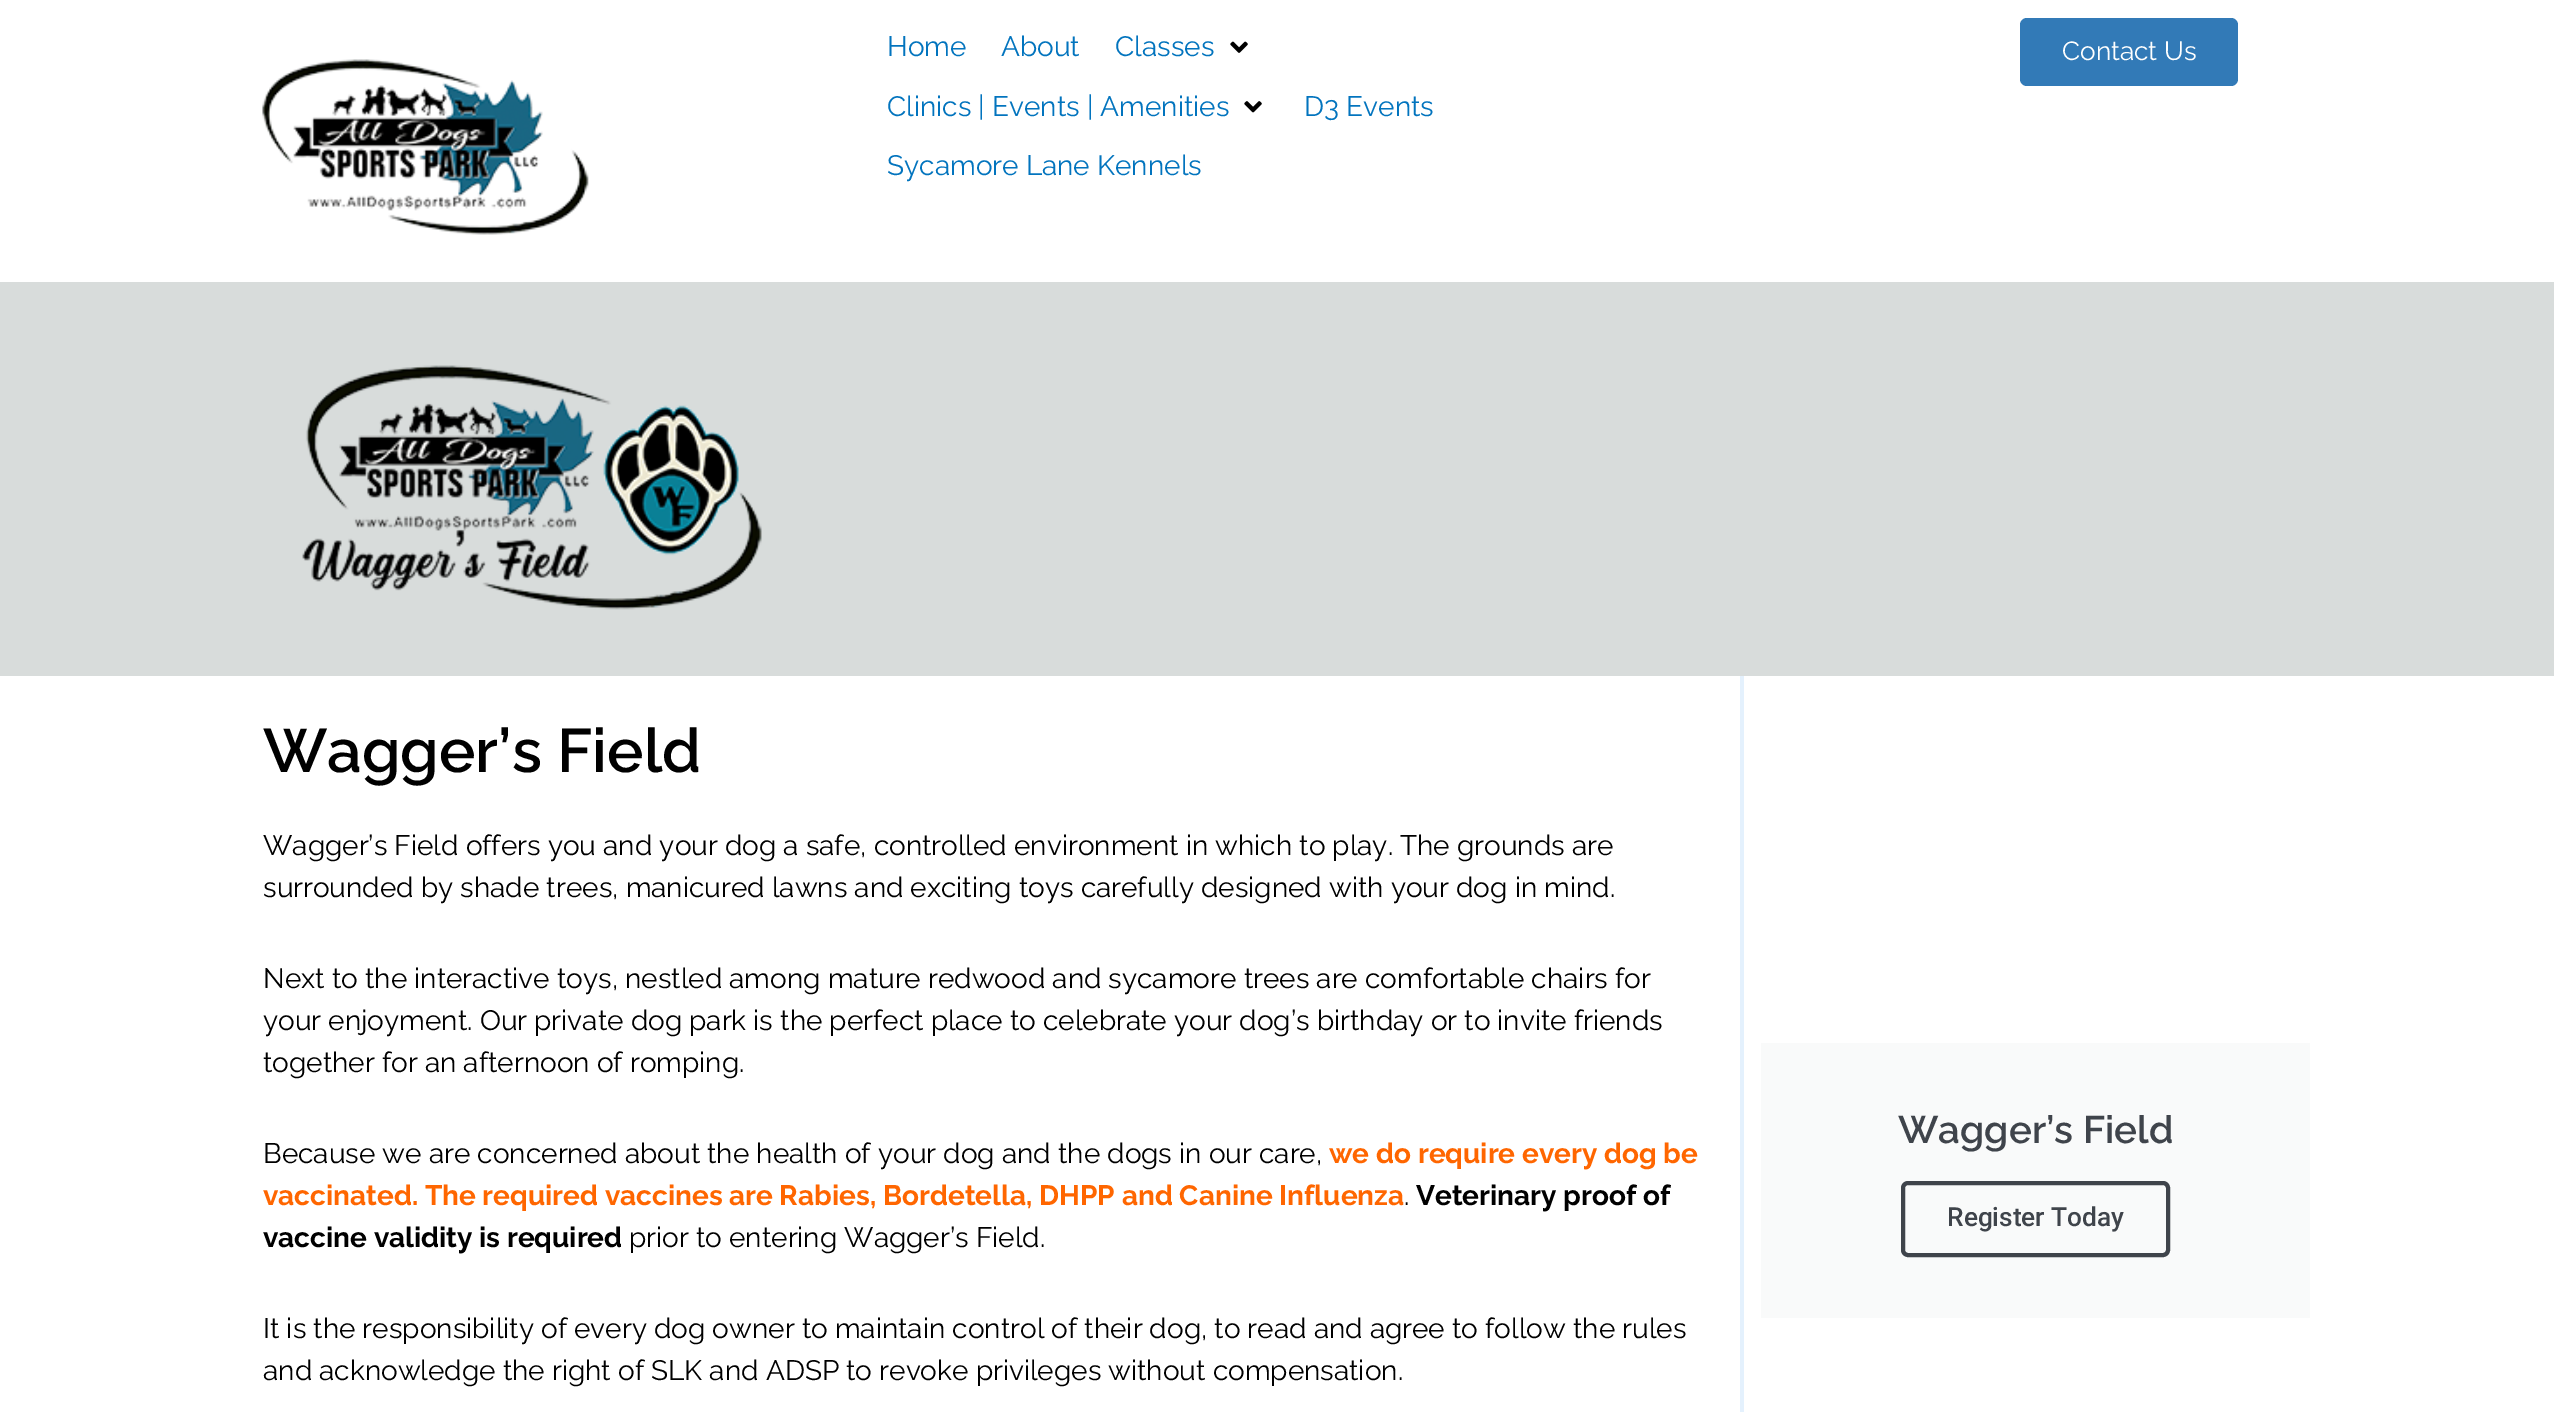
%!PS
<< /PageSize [2554 1412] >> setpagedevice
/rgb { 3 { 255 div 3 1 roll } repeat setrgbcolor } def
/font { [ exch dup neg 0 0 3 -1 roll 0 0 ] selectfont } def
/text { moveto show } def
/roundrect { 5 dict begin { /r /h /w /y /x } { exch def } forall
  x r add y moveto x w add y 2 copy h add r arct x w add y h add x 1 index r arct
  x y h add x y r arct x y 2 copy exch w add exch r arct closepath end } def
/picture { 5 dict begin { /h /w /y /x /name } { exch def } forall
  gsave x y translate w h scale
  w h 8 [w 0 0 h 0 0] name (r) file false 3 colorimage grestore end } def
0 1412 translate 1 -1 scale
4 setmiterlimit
255 255 255 rgb
0 0 2554 1412 rectfill
(img_01.rgb) 1230 41 18 12 picture
(img_02.rgb) 1244 101 18 12 picture
50 122 183 rgb
2020 18 218 68 7 roundrect fill
(img_03.rgb) 262 59 327 176 picture
216 220 219 rgb
0 282 2554 394 rectfill
(img_04.rgb) 302 365 460 245 picture
228 241 253 rgb
1740 676 4 736 rectfill
249 250 250 rgb
1761 1043 549 275 rectfill
63 68 75 rgb
4 setlinewidth
1903 1183 265 72 5 roundrect stroke
/Raleway-Regular 28 font
2 116 190 rgb
(Home) 887 56 text
(About) 1001 56 text
(Classes) 1115 56 text
(Clinics | Events | Amenities) 887 116 text
(D3 Events) 1304 116 text
(Sycamore Lane Kennels) 887 175 text
/Raleway-Regular 26.25 font
255 255 255 rgb
(Contact Us) 2062 60 text
/Raleway-SemiBold 61.25 font
0 0 0 rgb
(Wagger’s Field) 263 772 text
/Raleway-Regular 28 font
(Wagger’s Field offers you and your dog a safe, controlled environment in which to play. The grounds are) 263 855 text
(surrounded by shade trees, manicured lawns and exciting toys carefully designed with your dog in mind.) 263 897 text
(Next to the interactive toys, nestled among mature redwood and sycamore trees are comfortable chairs for) 263 988 text
(your enjoyment. Our private dog park is the perfect place to celebrate your dog’s birthday or to invite friends) 263 1030 text
(together for an afternoon of romping.) 263 1072 text
(Because we are concerned about the health of your dog and the dogs in our care,) 263 1163 text
/Raleway-Bold 28 font
255 102 0 rgb
(we do require every dog be) 1329 1163 text
(vaccinated. The required vaccines are Rabies, Bordetella, DHPP and Canine Influenza) 263 1205 text
/Raleway-Regular 28 font
0 0 0 rgb
(.) 1404 1205 text
/Raleway-Bold 28 font
(Veterinary proof of) 1416 1205 text
(vaccine validity is required) 263 1247 text
/Raleway-Regular 28 font
(prior to entering Wagger’s Field.) 629 1247 text
(It is the responsibility of every dog owner to maintain control of their dog, to read and agree to follow the rules) 263 1338 text
(and acknowledge the right of SLK and ADSP to revoke privileges without compensation.) 263 1380 text
/Raleway-SemiBold 38.5 font
63 68 75 rgb
(Wagger’s Field) 1898 1143 text
/Roboto-Medium 26.25 font
(Register Today) 1947 1226 text
showpage
